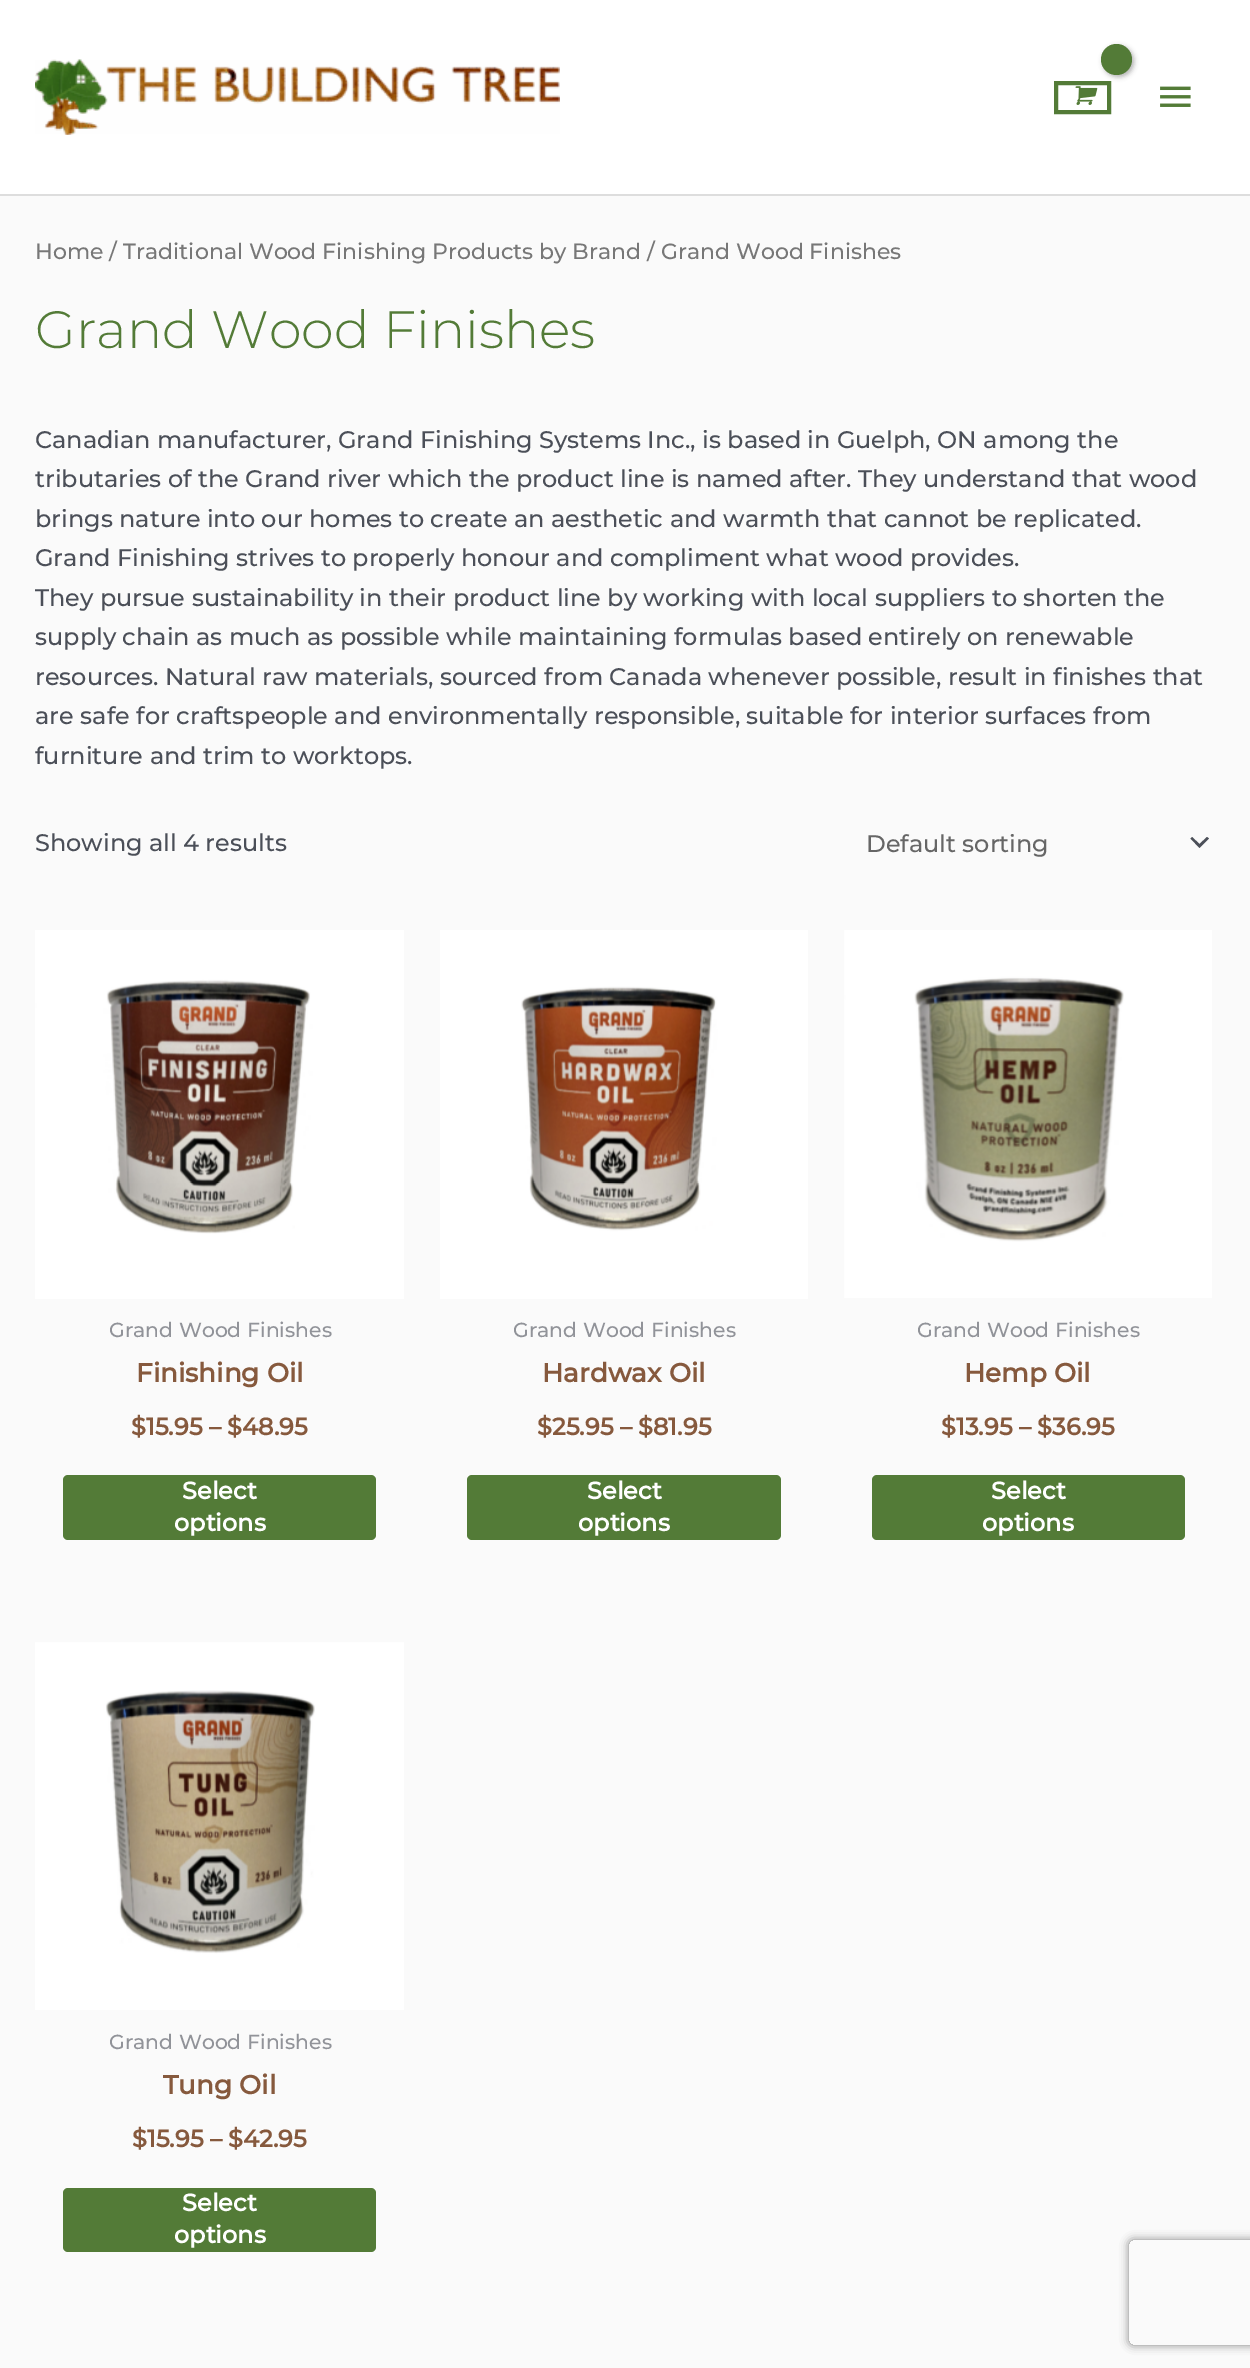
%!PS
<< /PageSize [1250 2368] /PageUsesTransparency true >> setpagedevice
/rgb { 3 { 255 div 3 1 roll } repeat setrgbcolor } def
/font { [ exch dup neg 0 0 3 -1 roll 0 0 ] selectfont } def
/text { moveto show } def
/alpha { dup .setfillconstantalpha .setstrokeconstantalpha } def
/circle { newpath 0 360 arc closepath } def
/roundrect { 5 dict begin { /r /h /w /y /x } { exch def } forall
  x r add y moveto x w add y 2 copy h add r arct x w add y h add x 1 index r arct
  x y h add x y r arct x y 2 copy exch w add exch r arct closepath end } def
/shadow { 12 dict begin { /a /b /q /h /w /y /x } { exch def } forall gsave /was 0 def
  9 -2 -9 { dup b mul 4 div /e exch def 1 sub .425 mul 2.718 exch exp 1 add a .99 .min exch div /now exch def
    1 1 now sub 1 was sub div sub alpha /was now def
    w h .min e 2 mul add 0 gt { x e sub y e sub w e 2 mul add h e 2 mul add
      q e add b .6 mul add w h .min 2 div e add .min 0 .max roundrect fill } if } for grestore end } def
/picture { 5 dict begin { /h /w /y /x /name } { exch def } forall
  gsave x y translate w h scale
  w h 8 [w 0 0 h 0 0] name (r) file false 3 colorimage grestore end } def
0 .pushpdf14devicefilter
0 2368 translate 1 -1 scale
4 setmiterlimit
250 250 250 rgb
0 0 1250 2368 rectfill
255 255 255 rgb
0 0 1250 194 rectfill
221 221 221 rgb
0 194 1250 2 rectfill
(img_01.rgb) 35 59 525 76 picture
83 123 55 rgb
4 setlinewidth
1056 83 53 29 rectstroke
0 0 0 rgb
1103 46 31 31 15.5 2.5 0.3 shadow
83 123 55 rgb
1116.5 59.5 15.5 circle fill
(img_02.rgb) 1075 86 23 19 picture
(img_03.rgb) 1160 86 31 21 picture
75 79 88 rgb
1190.5 838.5 moveto 9 9.5 rlineto 9.5 -9.5 rlineto -2 -1.5 rlineto -7.5 7 rlineto -7.5 -7 rlineto closepath fill
(img_04.rgb) 35 930 369 369 picture
83 123 55 rgb
63 1475 313 65 5 roundrect fill
(img_05.rgb) 440 930 368 369 picture
467 1475 314 65 5 roundrect fill
(img_06.rgb) 844 930 368 368 picture
872 1475 313 65 5 roundrect fill
(img_07.rgb) 35 1642 369 368 picture
63 2188 313 64 5 roundrect fill
gsave
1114 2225 moveto 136 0 rlineto 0 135 rlineto -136 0 rlineto closepath 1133 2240 moveto 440 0 rlineto 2 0 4 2 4 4 rcurveto 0 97 rlineto 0 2 -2 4 -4 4 rcurveto -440 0 rlineto -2 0 -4 -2 -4 -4 rcurveto 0 -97 rlineto 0 -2 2 -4 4 -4 rcurveto closepath eoclip newpath
128 128 128 rgb
1129 2240 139 105 4 4.5 1 shadow
grestore
/Montserrat-Medium 22 font
119 119 119 rgb
(Home / Traditional Wood Finishing Products by Brand / Grand Wood Finishes) 35 259 text
/Montserrat-Light 52.5 font
83 123 55 rgb
(Grand Wood Finishes) 35 348 text
/Montserrat-Medium 23.95 font
75 79 88 rgb
(Canadian manufacturer, Grand Finishing Systems Inc., is based in Guelph, ON among the) 35 448 text
(tributaries of the Grand river which the product line is named after. They understand that wood) 35 487 text
(brings nature into our homes to create an aesthetic and warmth that cannot be replicated.) 35 527 text
(Grand Finishing strives to properly honour and compliment what wood provides.) 35 566 text
(They pursue sustainability in their product line by working with local suppliers to shorten the) 35 606 text
(supply chain as much as possible while maintaining formulas based entirely on renewable) 35 645 text
(resources. Natural raw materials, sourced from Canada whenever possible, result in finishes that) 35 685 text
(are safe for craftspeople and environmentally responsible, suitable for interior surfaces from) 35 724 text
(furniture and trim to worktops.) 35 764 text
(Showing all 4 results) 35 851 text
102 102 102 rgb
(Default sorting) 866 852 text
/Montserrat-Medium 20.4 font
145 147 153 rgb
(Grand Wood Finishes) 109 1337 text
/Montserrat-Bold 26.25 font
134 89 61 rgb
(Finishing Oil) 136 1382 text
/Montserrat-Bold 23.95 font
($15.95 – $48.95) 131 1435 text
255 255 255 rgb
(Select) 182 1499 text
(options) 174 1531 text
/Montserrat-Medium 20.4 font
145 147 153 rgb
(Grand Wood Finishes) 513 1337 text
/Montserrat-Bold 26.25 font
134 89 61 rgb
(Hardwax Oil) 542 1382 text
/Montserrat-Bold 23.95 font
($25.95 – $81.95) 537 1435 text
255 255 255 rgb
(Select) 587 1499 text
(options) 578 1531 text
/Montserrat-Medium 20.4 font
145 147 153 rgb
(Grand Wood Finishes) 917 1337 text
/Montserrat-Bold 26.25 font
134 89 61 rgb
(Hemp Oil) 964 1382 text
/Montserrat-Bold 23.95 font
($13.95 – $36.95) 941 1435 text
255 255 255 rgb
(Select) 991 1499 text
(options) 982 1531 text
/Montserrat-Medium 20.4 font
145 147 153 rgb
(Grand Wood Finishes) 109 2049 text
/Montserrat-Bold 26.25 font
134 89 61 rgb
(Tung Oil) 163 2094 text
/Montserrat-Bold 23.95 font
($15.95 – $42.95) 132 2147 text
255 255 255 rgb
(Select) 182 2211 text
(options) 174 2243 text
.poppdf14devicefilter showpage
